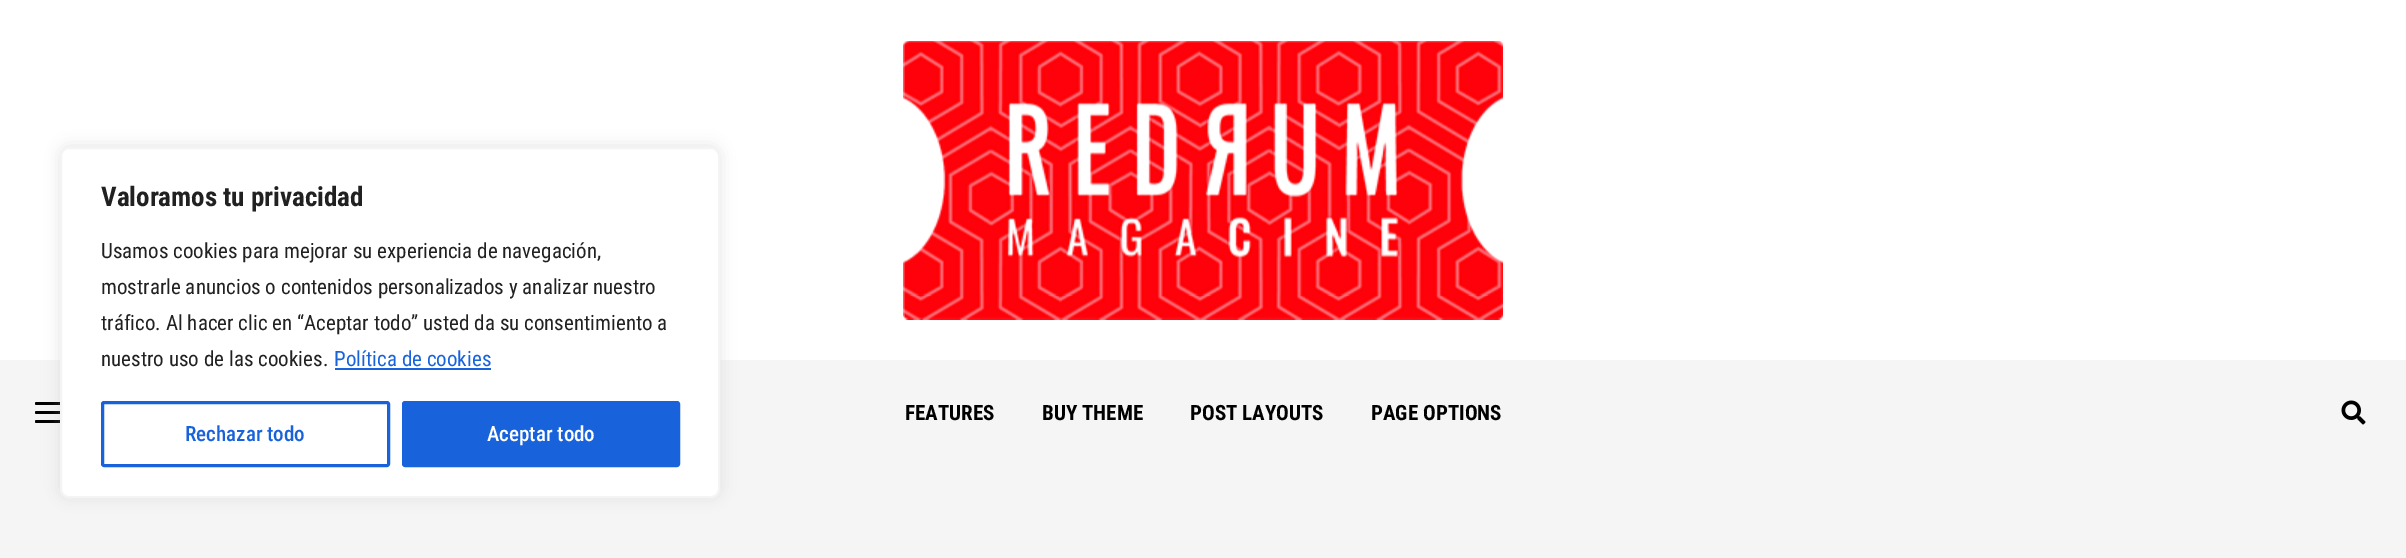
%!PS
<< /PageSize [2406 558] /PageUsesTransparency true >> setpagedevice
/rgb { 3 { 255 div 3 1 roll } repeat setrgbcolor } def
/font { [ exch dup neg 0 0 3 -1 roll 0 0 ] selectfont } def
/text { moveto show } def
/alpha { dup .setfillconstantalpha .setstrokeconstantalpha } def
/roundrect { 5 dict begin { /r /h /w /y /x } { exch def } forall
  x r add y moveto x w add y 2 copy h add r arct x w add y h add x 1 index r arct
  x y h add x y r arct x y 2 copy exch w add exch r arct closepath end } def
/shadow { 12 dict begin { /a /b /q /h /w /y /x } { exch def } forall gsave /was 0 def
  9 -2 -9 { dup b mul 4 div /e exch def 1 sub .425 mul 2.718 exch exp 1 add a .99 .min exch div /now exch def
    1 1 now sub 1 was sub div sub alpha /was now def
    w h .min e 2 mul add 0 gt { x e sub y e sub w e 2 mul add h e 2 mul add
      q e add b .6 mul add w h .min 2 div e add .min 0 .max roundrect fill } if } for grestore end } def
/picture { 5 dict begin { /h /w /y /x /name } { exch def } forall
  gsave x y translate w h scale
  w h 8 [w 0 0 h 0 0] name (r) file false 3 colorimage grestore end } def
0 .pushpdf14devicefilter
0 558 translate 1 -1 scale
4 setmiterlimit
255 255 255 rgb
0 0 2406 558 rectfill
245 245 245 rgb
0 360 2406 198 rectfill
0 0 0 rgb
35 402 36 3 1.5 roundrect fill
35 411 36 3 1.5 roundrect fill
35 420 36 3 1.5 roundrect fill
172 171 171 rgb
60 146 660 351 9 7.5 0.3 shadow
255 255 255 rgb
61 148 658 349 8 roundrect gsave fill grestore
244 244 244 rgb
2 setlinewidth
stroke
24 99 220 rgb
335 368 156 2 rectfill
3 setlinewidth
102.5 402.5 286 63 1.5 roundrect stroke
403.5 402.5 275 63 1.5 roundrect gsave fill grestore
stroke
(img_01.rgb) 903 41 600 279 picture
(img_02.rgb) 2341 400 25 25 picture
/RobotoCondensed-Bold 27 font
33 33 33 rgb
(Valoramos tu privacidad) 101 206 text
/RobotoCondensed-Regular 21 font
(Usamos cookies para mejorar su experiencia de navegación,) 101 258 text
(mostrarle anuncios o contenidos personalizados y analizar nuestro) 101 294 text
(tráfico. Al hacer clic en “Aceptar todo” usted da su consentimiento a) 101 330 text
(nuestro uso de las cookies.) 101 366 text
24 99 220 rgb
(Política de cookies) 334 366 text
/RobotoCondensed-Medium 21 font
(Rechazar todo) 185 441 text
255 255 255 rgb
(Aceptar todo) 487 441 text
/RobotoCondensed-Bold 21 font
0 0 0 rgb
(FEATURES) 905 420 text
(BUY THEME) 1042 420 text
(POST LAYOUTS) 1190 420 text
(PAGE OPTIONS) 1371 420 text
.poppdf14devicefilter showpage
